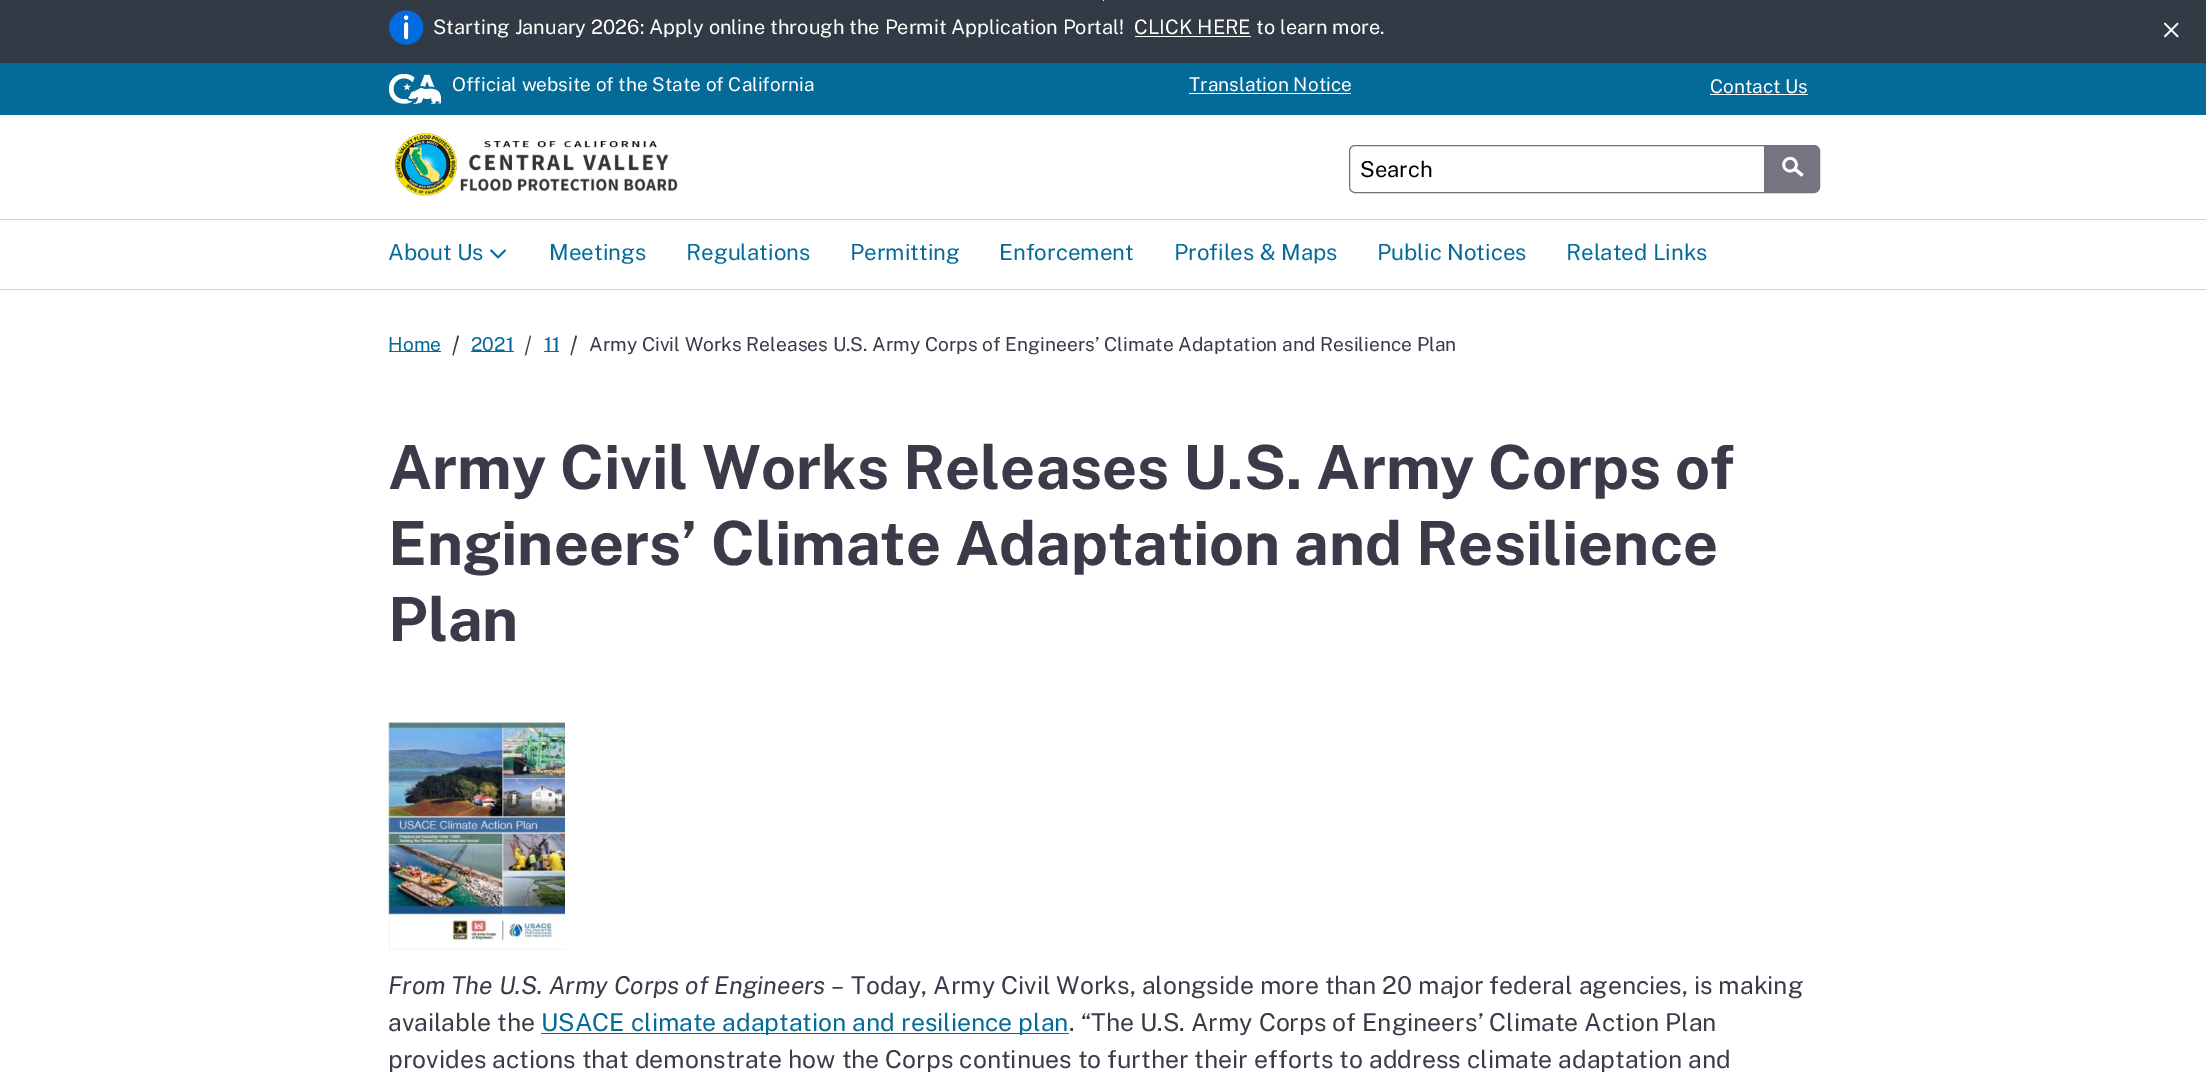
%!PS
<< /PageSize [2206 1080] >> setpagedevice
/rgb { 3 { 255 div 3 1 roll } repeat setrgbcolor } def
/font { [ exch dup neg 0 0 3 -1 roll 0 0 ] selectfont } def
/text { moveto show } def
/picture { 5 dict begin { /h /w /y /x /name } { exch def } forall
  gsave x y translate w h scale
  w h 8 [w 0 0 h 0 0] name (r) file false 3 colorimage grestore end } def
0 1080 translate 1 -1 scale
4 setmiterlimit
255 255 255 rgb
0 0 2206 1080 rectfill
212 212 215 rgb
0 289 2206 1 rectfill
50 58 69 rgb
0 0 2206 63 rectfill
255 255 255 rgb
1103 0 moveto 1 0 rlineto 0 0.5 rlineto 0 0.5 0 0.5 -0.5 0.5 rcurveto -0.5 0 -0.5 0 -0.5 -0.5 rcurveto closepath fill
(img_01.rgb) 389 10 35 35 picture
1135 36 116 1 rectfill
(img_02.rgb) 2164 22 15 16 picture
4 107 153 rgb
0 63 2206 52 rectfill
(img_03.rgb) 389 74 52 30 picture
255 255 255 rgb
1189 93 162 1 rectfill
1710 94 98 1 rectfill
212 212 215 rgb
0 219 2206 1 rectfill
(img_04.rgb) 394 133 284 63 picture
114 113 124 rgb
1355 145.5 moveto 409.5 0 rlineto 0 47 rlineto -409.5 0 rlineto -3 0 -5.5 -2.5 -5.5 -5.5 rcurveto 0 -36 rlineto 0 -3 2.5 -5.5 5.5 -5.5 rcurveto closepath stroke
119 116 129 rgb
1764.5 145.5 moveto 49.5 0 rlineto 3 0 5.5 2.5 5.5 5.5 rcurveto 0 36 rlineto 0 3 -2.5 5.5 -5.5 5.5 rcurveto -49.5 0 rlineto closepath gsave fill grestore
114 113 124 rgb
stroke
(img_05.rgb) 1782 156 22 21 picture
(img_06.rgb) 490 249 16 10 picture
4 107 153 rgb
389 351 52 1 rectfill
59 58 72 rgb
457.5 335.5 moveto 1.5 0.5 rlineto -5.5 19.5 rlineto -1 -0.5 rlineto closepath fill
4 107 153 rgb
471 351 43 1 rectfill
59 58 72 rgb
530 335.5 moveto 1 0.5 rlineto -5 19.5 rlineto -1 -0.5 rlineto closepath fill
4 107 153 rgb
544 351 15 1 rectfill
59 58 72 rgb
575.5 335.5 moveto 1.5 0.5 rlineto -5.5 19.5 rlineto -1 -0.5 rlineto closepath fill
(img_07.rgb) 388 722 177 228 picture
4 107 153 rgb
541 1033 528 1 rectfill
/PublicSans-Regular 20 font
255 255 255 rgb
(Starting January 2026: Apply online through the Permit Application Portal!) 433 34 text
(CLICK HERE to learn more.) 1134 34 text
/PublicSans-Regular 19 font
(Official website of the State of California) 452 91 text
(Translation Notice) 1189 91 text
(Contact Us) 1710 93 text
/PublicSans-Regular 22 font
0 0 0 rgb
(Search) 1360 177 text
/PublicSans-Regular 22.25 font
4 107 153 rgb
(About Us) 388 260 text
(Meetings) 549 260 text
(Regulations) 686 260 text
(Permitting) 850 260 text
(Enforcement) 999 260 text
(Profiles & Maps) 1174 260 text
(Public Notices) 1377 260 text
(Related Links) 1566 260 text
/PublicSans-Regular 19.2 font
(Home) 388 351 text
(2021) 471 351 text
(11) 544 351 text
59 58 72 rgb
(Army Civil Works Releases U.S. Army Corps of Engineers’ Climate Adaptation and Resilience Plan) 589 351 text
/PublicSans-Bold 61 font
(Army Civil Works Releases U.S. Army Corps of) 388 489 text
(Engineers’ Climate Adaptation and Resilience) 388 565 text
(Plan) 388 641 text
/PublicSans-Italic 24.7 font
(From The U.S. Army Corps of Engineers) 388 994 text
(–) 831 994 text
/PublicSans-Regular 24.7 font
(Today, Army Civil Works, alongside more than 20 major federal agencies, is making) 851 994 text
(available the) 388 1031 text
4 107 153 rgb
(USACE climate adaptation and resilience plan) 541 1031 text
59 58 72 rgb
(. “The U.S. Army Corps of Engineers’ Climate Action Plan) 1069 1031 text
(provides actions that demonstrate how the Corps continues to further their efforts to address climate adaptation and) 388 1068 text
showpage
